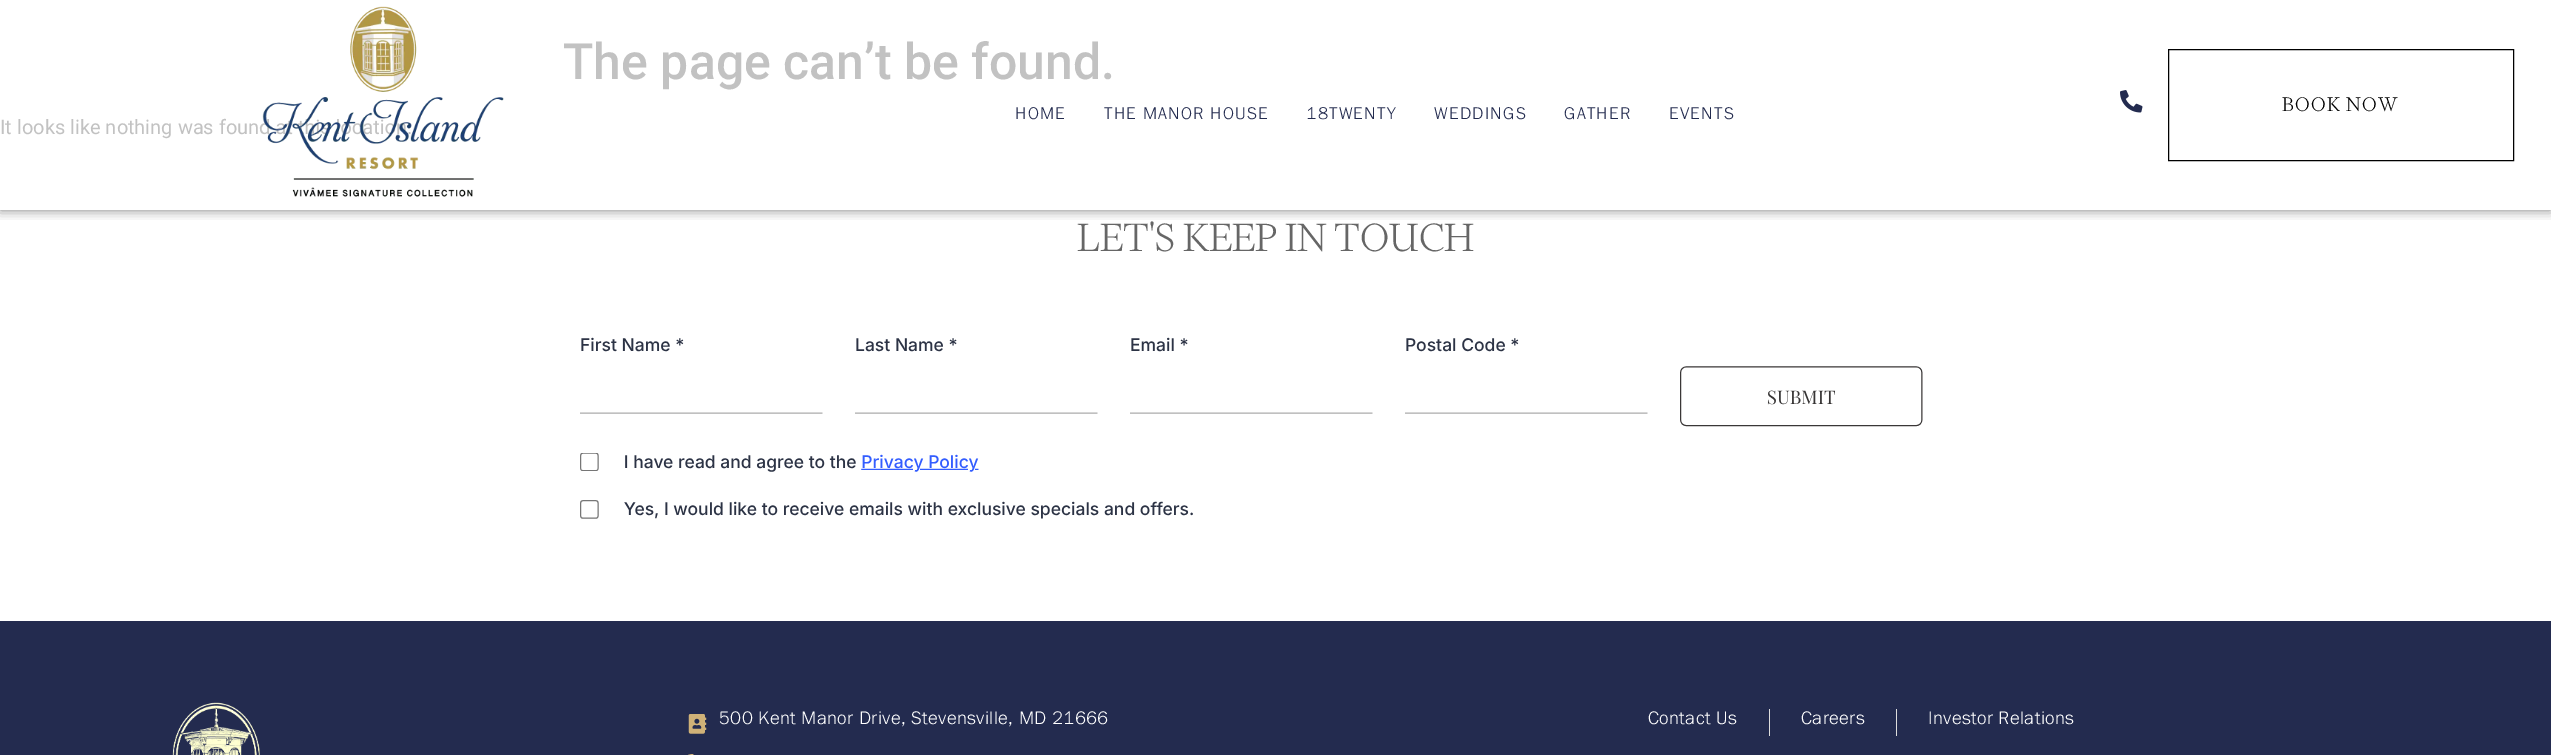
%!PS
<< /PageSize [2551 755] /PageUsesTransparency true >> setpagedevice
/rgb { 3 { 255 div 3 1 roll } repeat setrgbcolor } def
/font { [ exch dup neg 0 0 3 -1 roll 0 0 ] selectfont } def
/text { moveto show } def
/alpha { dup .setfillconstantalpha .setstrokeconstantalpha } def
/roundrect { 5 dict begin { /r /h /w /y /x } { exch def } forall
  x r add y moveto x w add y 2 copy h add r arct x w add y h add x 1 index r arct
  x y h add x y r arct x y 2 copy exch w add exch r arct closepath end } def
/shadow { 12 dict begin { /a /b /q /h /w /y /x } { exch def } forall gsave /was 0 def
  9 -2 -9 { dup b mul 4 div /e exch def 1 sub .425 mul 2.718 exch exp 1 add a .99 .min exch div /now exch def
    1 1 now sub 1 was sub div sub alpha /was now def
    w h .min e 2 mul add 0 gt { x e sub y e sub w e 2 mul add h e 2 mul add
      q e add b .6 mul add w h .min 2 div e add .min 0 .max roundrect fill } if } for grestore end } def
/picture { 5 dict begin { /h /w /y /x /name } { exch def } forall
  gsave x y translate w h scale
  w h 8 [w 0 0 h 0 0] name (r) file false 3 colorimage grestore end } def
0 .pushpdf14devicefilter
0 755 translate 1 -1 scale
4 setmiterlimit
255 255 255 rgb
0 0 2551 755 rectfill
gsave
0 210 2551 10 rectclip
0 0 0 rgb
0 0 2551 210 0 6 0.5 shadow
grestore
(img_02.rgb) 2120 90 23 23 picture
0 0 0 rgb
2168.5 49.5 345 111 rectstroke
(img_03.rgb) 580 337 1343 182 picture
35 43 79 rgb
0 621 2551 134 rectfill
(img_04.rgb) 172 702 88 53 picture
(img_05.rgb) 688 714 19 20 picture
(img_06.rgb) 688 754 6 1 picture
221 221 221 rgb
1769 709 1 27 rectfill
1896 709 1 27 rectfill
/Roboto-Medium 50 font
194 194 194 rgb
(The page can’t be found.) 563 79 text
/Roboto-Regular 20 font
(It looks like nothing was found at this location.) 0 134 text
(img_01.rgb) 262 6 242 191 picture
/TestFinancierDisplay-Light 22.5 font
0 0 0 rgb
2282 111 moveto 1.25 0 (BOOK NOW) ashow
/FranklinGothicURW-Light 17.5 font
35 43 79 rgb
1015 119 moveto 1.25 0 (HOME) ashow
1104 119 moveto 1.25 0 (THE MANOR HOUSE) ashow
1306 119 moveto 1.25 0 (18TWENTY) ashow
1434 119 moveto 1.25 0 (WEDDINGS) ashow
1564 119 moveto 1.25 0 (GATHER) ashow
1669 119 moveto 1.25 0 (EVENTS) ashow
/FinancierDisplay-Light 45 font
102 102 102 rgb
(LET'S KEEP IN TOUCH) 1077 251 text
/FranklinGothicURW-Light 18.75 font
255 255 255 rgb
719 724 moveto 0.4 0 (500 Kent Manor Drive, Stevensville, MD 21666) ashow
1648 724 moveto 0.4 0 (Contact Us) ashow
1801 724 moveto 0.4 0 (Careers) ashow
1928 724 moveto 0.4 0 (Investor Relations) ashow
.poppdf14devicefilter showpage
